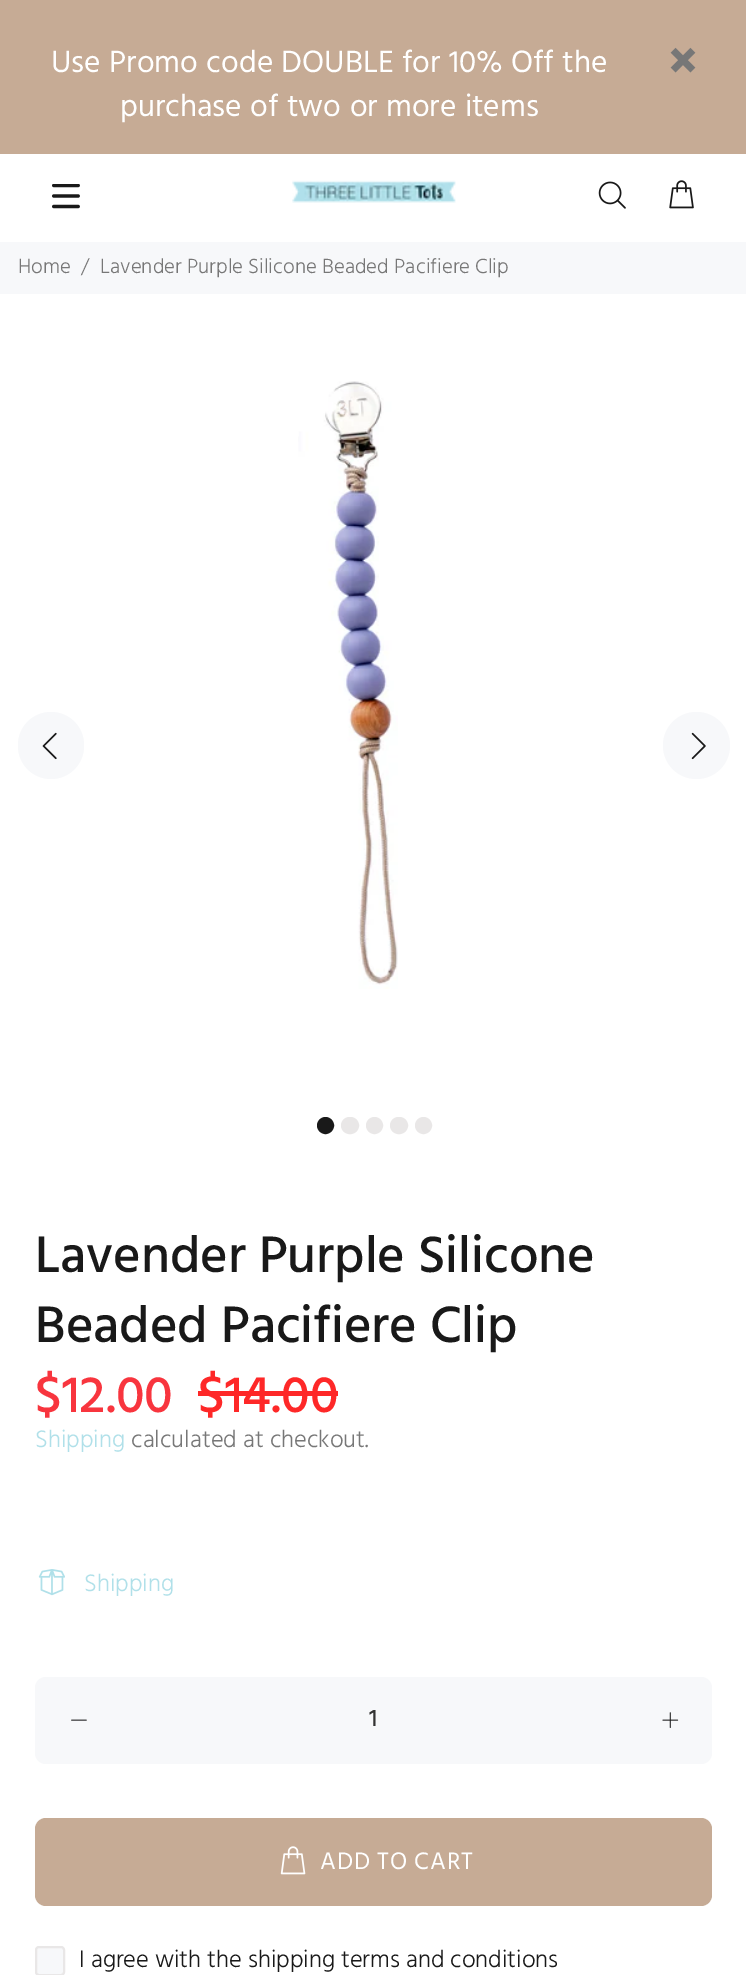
%!PS
<< /PageSize [746 1975] >> setpagedevice
/rgb { 3 { 255 div 3 1 roll } repeat setrgbcolor } def
/font { [ exch dup neg 0 0 3 -1 roll 0 0 ] selectfont } def
/text { moveto show } def
/circle { newpath 0 360 arc closepath } def
/roundrect { 5 dict begin { /r /h /w /y /x } { exch def } forall
  x r add y moveto x w add y 2 copy h add r arct x w add y h add x 1 index r arct
  x y h add x y r arct x y 2 copy exch w add exch r arct closepath end } def
/picture { 5 dict begin { /h /w /y /x /name } { exch def } forall
  gsave x y translate w h scale
  w h 8 [w 0 0 h 0 0] name (r) file false 3 colorimage grestore end } def
0 1975 translate 1 -1 scale
4 setmiterlimit
255 255 255 rgb
0 0 746 1975 rectfill
198 171 149 rgb
0 0 746 154 rectfill
(img_01.rgb) 670 47 26 26 picture
(img_02.rgb) 52 184 28 25 picture
(img_03.rgb) 292 180 164 23 picture
(img_04.rgb) 598 181 28 28 picture
(img_05.rgb) 669 180 25 29 picture
247 248 250 rgb
0 242 746 52 rectfill
18 712 66 67 33 roundrect fill
(img_06.rgb) 42 732 15 28 picture
(img_07.rgb) 298 381 100 608 picture
696.5 745.5 33.5 circle fill
(img_08.rgb) 691 732 15 28 picture
25 25 25 rgb
325.5 1125.5 7.5 circle gsave fill grestore
2 setlinewidth
stroke
233 231 231 rgb
342 1118 16 15 7.5 roundrect gsave fill grestore
stroke
374.5 1125.5 7.5 circle gsave fill grestore
stroke
391 1118 16 15 7.5 roundrect gsave fill grestore
stroke
423.5 1125.5 7.5 circle gsave fill grestore
stroke
254 40 40 rgb
198 1391 140 5 rectfill
(img_09.rgb) 38 1569 27 27 picture
247 248 250 rgb
35 1677 677 87 11 roundrect fill
(img_10.rgb) 71 1719 16 2 picture
(img_11.rgb) 662 1712 17 16 picture
198 171 149 rgb
35 1818 677 88 11 roundrect fill
(img_12.rgb) 280 1846 26 29 picture
247 248 250 rgb
36 1947 28 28 3 roundrect gsave fill grestore
233 231 231 rgb
stroke
/Hind-Regular 31.5 font
255 255 255 rgb
51 72 moveto 0.75 0 32 (Use Promo code DOUBLE for 10% Off the) widthshow
120 116 moveto 0.75 0 32 (purchase of two or more items) widthshow
/Hind-Light 21 font
119 119 119 rgb
(Home) 18 273 text
(/) 81 273 text
(Lavender Purple Silicone Beaded Pacifiere Clip) 100 273 text
/Hind-Medium 52.5 font
25 25 25 rgb
(Lavender Purple Silicone) 35 1272 text
(Beaded Pacifiere Clip) 35 1342 text
248 53 62 rgb
($12.00) 35 1412 text
254 40 40 rgb
($14.00) 198 1412 text
/Hind-Light 24.5 font
176 224 233 rgb
(Shipping) 35 1447 text
119 119 119 rgb
(calculated at checkout.) 131 1447 text
176 224 233 rgb
(Shipping) 84 1591 text
/Hind-Medium 24.5 font
51 51 51 rgb
(1) 369 1726 text
/Hind-Regular 24.5 font
255 255 255 rgb
320 1869 moveto 0.75 0 (ADD TO CART) ashow
/Hind-Light 24.5 font
25 25 25 rgb
(I agree with the shipping terms and conditions) 79 1967 text
showpage
